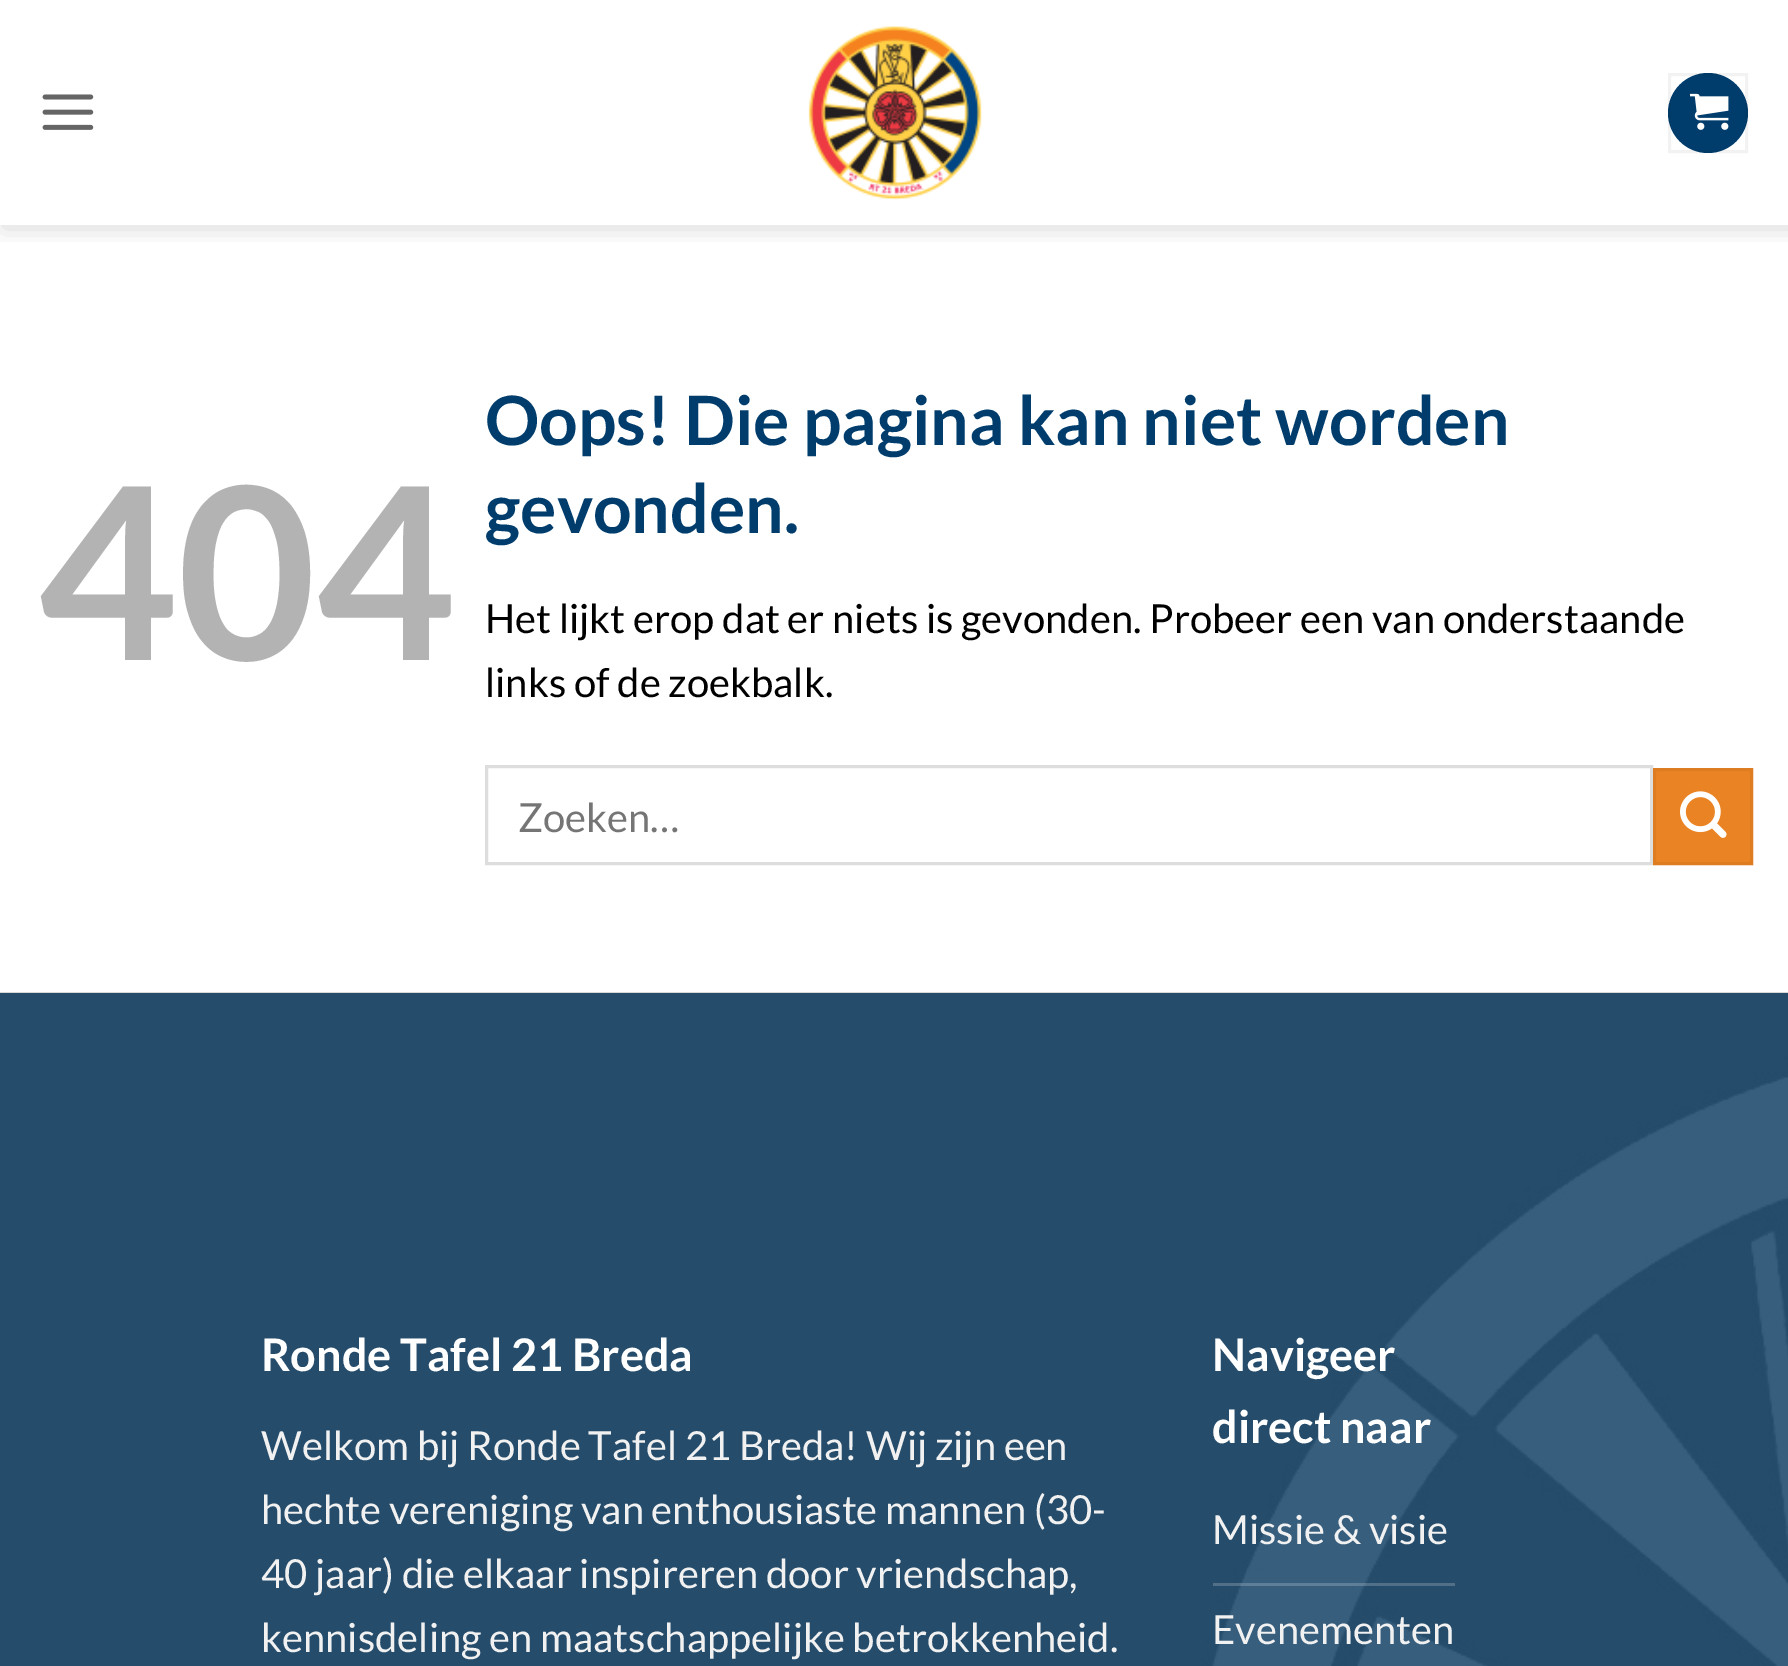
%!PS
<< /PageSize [1788 1666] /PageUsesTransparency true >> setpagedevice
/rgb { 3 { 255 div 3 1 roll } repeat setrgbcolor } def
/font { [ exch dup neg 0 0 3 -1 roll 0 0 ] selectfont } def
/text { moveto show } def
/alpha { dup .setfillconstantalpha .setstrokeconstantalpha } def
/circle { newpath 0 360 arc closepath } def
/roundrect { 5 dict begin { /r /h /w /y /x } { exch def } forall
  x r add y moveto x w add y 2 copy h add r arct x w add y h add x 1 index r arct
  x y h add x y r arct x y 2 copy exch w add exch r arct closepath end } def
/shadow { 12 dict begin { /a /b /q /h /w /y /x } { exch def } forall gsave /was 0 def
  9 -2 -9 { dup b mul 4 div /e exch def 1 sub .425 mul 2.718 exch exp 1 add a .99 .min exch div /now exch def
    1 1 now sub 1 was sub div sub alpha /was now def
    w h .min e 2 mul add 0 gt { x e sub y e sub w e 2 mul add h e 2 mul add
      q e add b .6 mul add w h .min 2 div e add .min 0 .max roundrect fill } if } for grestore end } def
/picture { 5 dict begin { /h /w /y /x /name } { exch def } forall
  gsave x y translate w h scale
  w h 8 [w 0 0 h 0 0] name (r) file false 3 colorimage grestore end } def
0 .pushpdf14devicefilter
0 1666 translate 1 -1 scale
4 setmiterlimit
255 255 255 rgb
0 0 1788 1666 rectfill
gsave
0 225 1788 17 rectclip
0 0 0 rgb
3 3 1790 225 0 12.5 0.15 shadow
grestore
(img_01.rgb) 42 94 52 36 picture
(img_02.rgb) 808 26 174 174 picture
0 61 109 rgb
1708 113 40 circle fill
0.05 alpha
0 0 0 rgb
3 setlinewidth
1669.5 74.5 77 77 rectstroke
1 alpha
(img_03.rgb) 1690 93 39 37 picture
221 221 221 rgb
486.5 766.5 1165 97 rectstroke
234 131 35 rgb
1654.5 769.5 moveto 97 0 rlineto 0 94 rlineto -97 0 rlineto closepath gsave fill grestore
222 124 33 rgb
stroke
(img_04.rgb) 1680 791 47 47 picture
(img_05.rgb) 0 992 1788 674 picture
0.2 alpha
255 255 255 rgb
1213 1583 242 3 rectfill
/Lato-Bold 240 font
1 alpha
179 179 179 rgb
(404) 38 660 text
/Lato-Bold 68 font
0 61 109 rgb
(Oops! Die pagina kan niet worden) 485 445 text
(gevonden.) 485 533 text
/Lato-Regular 40 font
0 0 0 rgb
(Het lijkt erop dat er niets is gevonden. Probeer een van onderstaande) 485 633 text
(links of de zoekbalk.) 485 697 text
117 117 117 rgb
(Zoeken…) 518 832 text
/Lato-Bold 45 font
255 255 255 rgb
(Ronde Tafel 21 Breda) 261 1371 text
/Lato-Regular 40 font
241 241 241 rgb
(Welkom bij Ronde Tafel 21 Breda! Wij zijn een) 261 1460 text
(hechte vereniging van enthousiaste mannen \(30-) 261 1524 text
(40 jaar\) die elkaar inspireren door vriendschap,) 261 1588 text
(kennisdeling en maatschappelijke betrokkenheid.) 261 1652 text
/Lato-Bold 45 font
255 255 255 rgb
(Navigeer) 1212 1371 text
(direct naar) 1212 1443 text
/Lato-Regular 40 font
241 241 241 rgb
(Missie & visie) 1212 1544 text
(Evenementen) 1212 1644 text
.poppdf14devicefilter showpage
